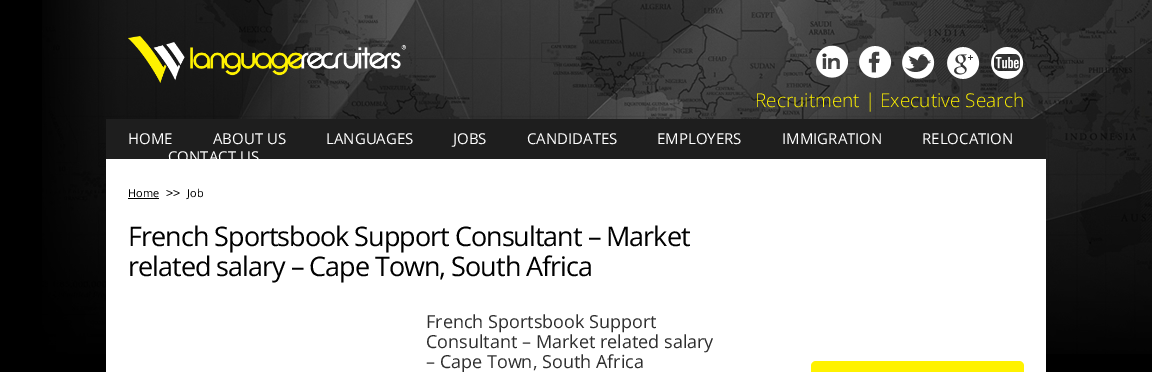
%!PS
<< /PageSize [1152 372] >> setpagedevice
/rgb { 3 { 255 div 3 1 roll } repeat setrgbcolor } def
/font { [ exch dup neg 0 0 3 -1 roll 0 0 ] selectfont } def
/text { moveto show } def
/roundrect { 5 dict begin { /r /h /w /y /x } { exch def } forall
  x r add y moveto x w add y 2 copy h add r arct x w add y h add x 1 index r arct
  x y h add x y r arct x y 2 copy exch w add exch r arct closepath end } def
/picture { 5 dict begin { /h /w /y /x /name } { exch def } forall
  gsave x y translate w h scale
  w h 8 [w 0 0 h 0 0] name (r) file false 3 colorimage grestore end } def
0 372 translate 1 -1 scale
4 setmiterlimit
0 0 0 rgb
0 0 1152 372 rectfill
(img_01.rgb) 42 0 1110 354 picture
(img_02.rgb) 128 36 278 47 picture
(img_03.rgb) 816 45 32 33 picture
(img_04.rgb) 859 46 33 32 picture
(img_05.rgb) 902 46 33 33 picture
(img_06.rgb) 947 47 33 32 picture
(img_07.rgb) 991 47 33 32 picture
30 30 30 rgb
106 119 940 40 rectfill
255 255 255 rgb
106 159 940 213 rectfill
0 0 0 rgb
128 198 31 1 rectfill
255 242 0 rgb
811 361 213 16 5 roundrect fill
/OpenSans-Light 19 font
(Recruitment | Executive Search) 755 107 text
/OpenSans-Regular 15 font
255 255 255 rgb
(HOME) 128 144 text
(ABOUT US) 213 144 text
(LANGUAGES) 326 144 text
(JOBS) 453 144 text
(CANDIDATES) 527 144 text
(EMPLOYERS) 657 144 text
(IMMIGRATION) 782 144 text
(RELOCATION) 922 144 text
(CONTACT US) 168 162 text
/OpenSans-Regular 11 font
0 0 0 rgb
(Home) 128 197 text
/LiberationSans-Regular 12 font
(>>) 166 197 text
/OpenSans-Regular 11 font
(Job) 187 197 text
/OpenSans-Regular 27 font
128 246 moveto -1 0 (French Sportsbook Support Consultant – Market) ashow
128 276 moveto -1 0 (related salary – Cape Town, South Africa) ashow
/OpenSans-Regular 18 font
46 46 46 rgb
(French Sportsbook Support) 426 328 text
(Consultant – Market related salary) 426 348 text
(– Cape Town, South Africa) 426 368 text
showpage
